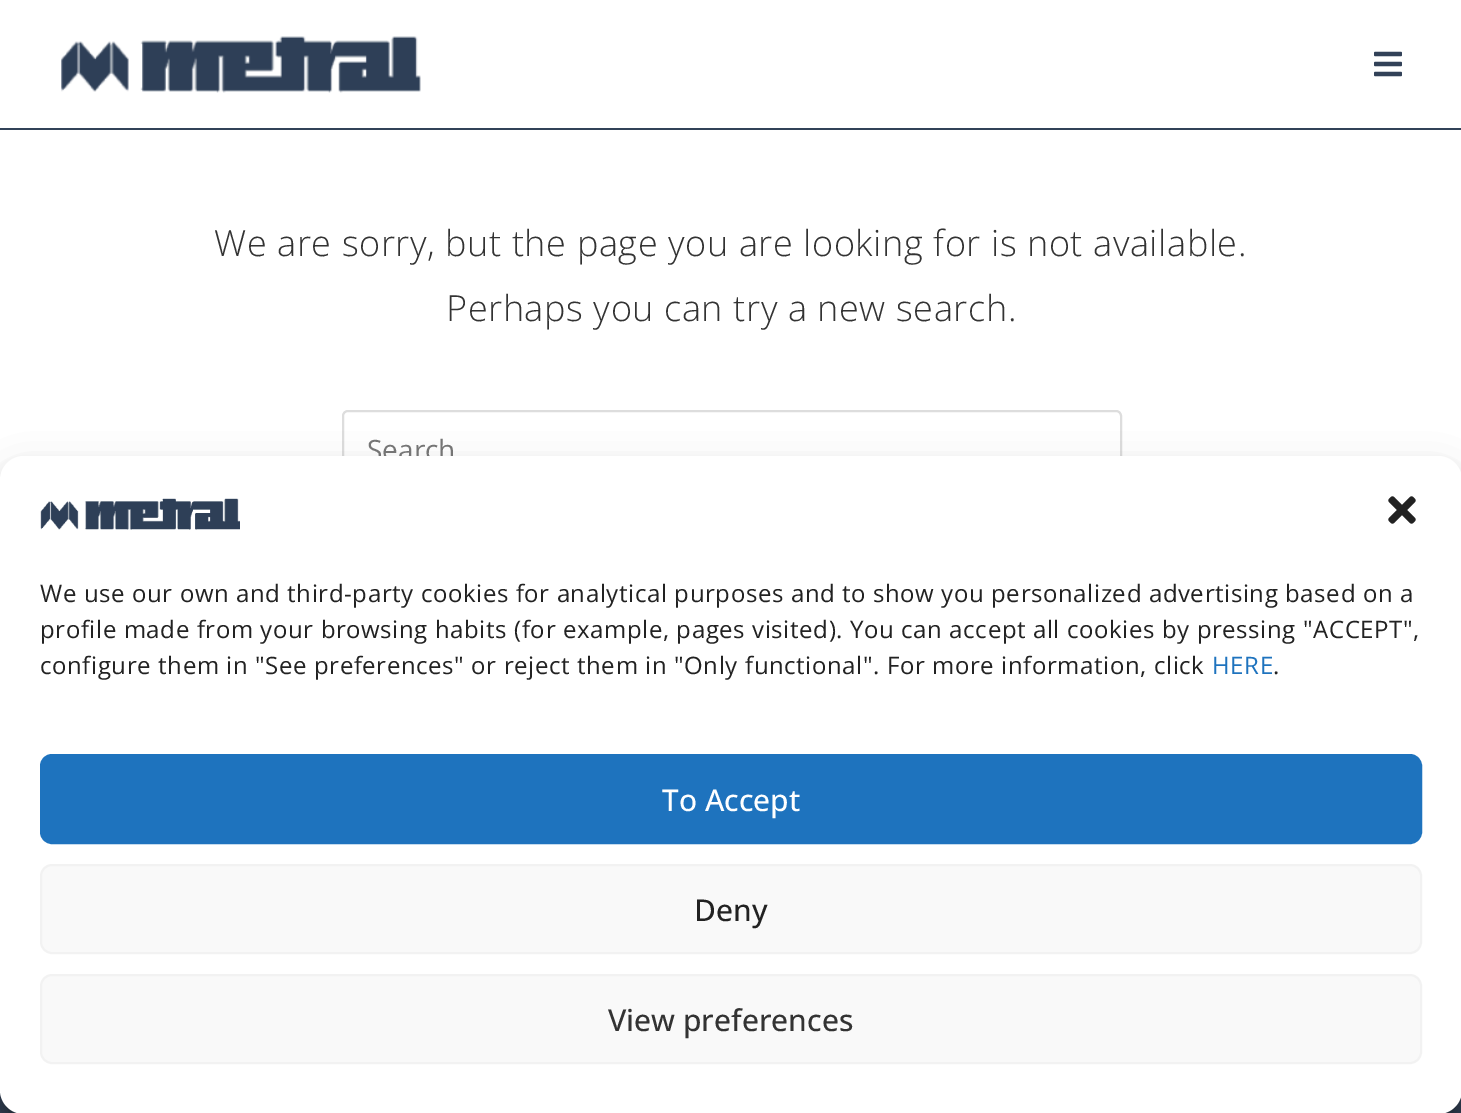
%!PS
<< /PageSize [1461 1113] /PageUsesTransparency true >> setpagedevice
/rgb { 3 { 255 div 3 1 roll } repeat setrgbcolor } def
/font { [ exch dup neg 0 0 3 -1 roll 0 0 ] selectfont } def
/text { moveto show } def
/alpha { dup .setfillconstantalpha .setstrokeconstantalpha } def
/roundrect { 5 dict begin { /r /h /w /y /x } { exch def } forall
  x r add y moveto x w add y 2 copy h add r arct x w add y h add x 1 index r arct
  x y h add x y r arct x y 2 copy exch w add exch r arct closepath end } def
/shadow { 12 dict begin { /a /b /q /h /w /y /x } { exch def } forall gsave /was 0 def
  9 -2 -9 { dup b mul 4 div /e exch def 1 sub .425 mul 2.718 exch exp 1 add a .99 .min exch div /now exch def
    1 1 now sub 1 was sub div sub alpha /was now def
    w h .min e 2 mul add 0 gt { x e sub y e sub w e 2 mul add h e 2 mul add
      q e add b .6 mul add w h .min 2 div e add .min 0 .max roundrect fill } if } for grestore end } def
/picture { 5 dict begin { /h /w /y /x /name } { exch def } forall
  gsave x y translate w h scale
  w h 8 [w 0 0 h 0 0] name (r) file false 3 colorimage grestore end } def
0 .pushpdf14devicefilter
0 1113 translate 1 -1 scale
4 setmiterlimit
255 255 255 rgb
0 0 1461 1113 rectfill
49 66 88 rgb
0 128 1461 2 rectfill
(img_01.rgb) 61 36 360 57 picture
(img_02.rgb) 1374 51 28 26 picture
221 221 221 rgb
2 setlinewidth
343 411 778 78 5 roundrect stroke
50 65 88 rgb
0 1090 1461 23 rectfill
0 0 0 rgb
0 468 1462 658 24 6 0.23 shadow
0 476 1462 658 24 20 0.19 shadow
/OpenSans-Light 36 font
51 51 51 rgb
214 256 moveto 0.6 0 (We are sorry, but the page you are looking for is not available.) ashow
446 321 moveto 0.6 0 (Perhaps you can try a new search.) ashow
/OpenSans-Regular 28 font
117 117 117 rgb
(Search) 367 460 text
255 255 255 rgb
0 456 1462 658 24 roundrect fill
(img_03.rgb) 40 498 200 32 picture
(img_04.rgb) 1388 496 28 28 picture
/OpenSans-Regular 24 font
34 34 34 rgb
40 602 moveto 0.6 0 (We use our own and third-party cookies for analytical purposes and to show you personalized advertising based on a) ashow
40 638 moveto 0.6 0 (profile made from your browsing habits \(for example, pages visited\). You can accept all cookies by pressing "ACCEPT",) ashow
40 674 moveto 0.6 0 (configure them in "See preferences" or reject them in "Only functional". For more information, click) ashow
30 115 190 rgb
1212 674 moveto 0.6 0 (HERE) ashow
34 34 34 rgb
1273 674 moveto 0.6 0 (.) ashow
30 115 190 rgb
41 755 1380 88 11 roundrect gsave fill grestore
stroke
/OpenSans-Medium 30 font
255 255 255 rgb
(To Accept) 662 811 text
249 249 249 rgb
41 865 1380 88 11 roundrect gsave fill grestore
242 242 242 rgb
stroke
34 34 34 rgb
(Deny) 694 921 text
249 249 249 rgb
41 975 1380 88 11 roundrect gsave fill grestore
242 242 242 rgb
stroke
51 51 51 rgb
(View preferences) 608 1031 text
.poppdf14devicefilter showpage
